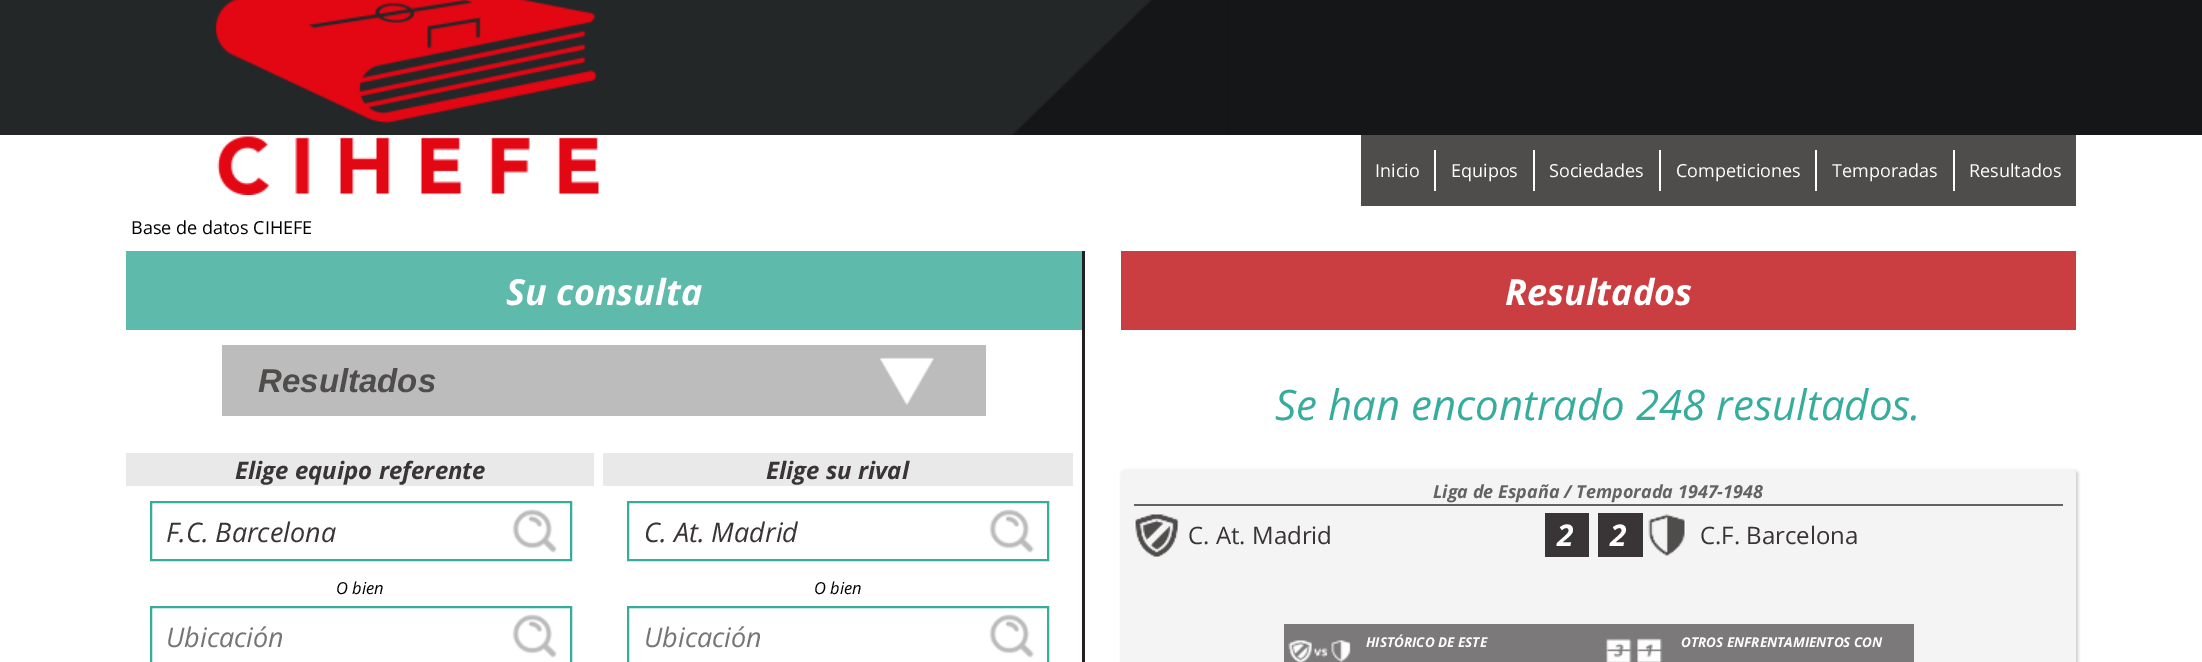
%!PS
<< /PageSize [2202 662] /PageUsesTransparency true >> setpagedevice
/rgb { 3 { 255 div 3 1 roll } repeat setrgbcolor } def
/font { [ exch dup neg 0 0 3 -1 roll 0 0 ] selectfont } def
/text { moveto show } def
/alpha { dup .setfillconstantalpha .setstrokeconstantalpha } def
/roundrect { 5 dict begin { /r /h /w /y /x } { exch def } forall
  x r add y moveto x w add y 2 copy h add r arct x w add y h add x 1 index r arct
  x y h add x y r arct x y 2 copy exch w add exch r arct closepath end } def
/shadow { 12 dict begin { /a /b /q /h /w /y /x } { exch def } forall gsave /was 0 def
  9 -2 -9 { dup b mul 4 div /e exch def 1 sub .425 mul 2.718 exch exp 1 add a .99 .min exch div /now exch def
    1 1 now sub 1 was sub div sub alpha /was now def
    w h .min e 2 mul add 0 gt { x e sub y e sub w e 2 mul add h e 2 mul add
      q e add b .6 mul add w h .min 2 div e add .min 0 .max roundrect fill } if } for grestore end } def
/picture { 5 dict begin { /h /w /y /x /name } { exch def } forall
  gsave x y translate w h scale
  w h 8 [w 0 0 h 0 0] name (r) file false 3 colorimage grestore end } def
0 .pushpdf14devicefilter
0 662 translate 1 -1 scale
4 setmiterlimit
255 255 255 rgb
0 0 2202 662 rectfill
(img_01.rgb) 0 0 2202 135 picture
(img_02.rgb) 215 0 384 195 picture
79 76 76 rgb
1361 135 715 71 rectfill
255 255 255 rgb
1434 150 2 41 rectfill
1533 150 2 41 rectfill
1659 150 2 41 rectfill
1815 150 2 41 rectfill
1953 150 2 41 rectfill
35 31 32 rgb
1082 251 3 411 rectfill
94 186 170 rgb
126 251 956 79 rectfill
189 188 188 rgb
222 345 764 71 rectfill
(img_03.rgb) 880 357 54 49 picture
233 233 233 rgb
126 453 468 33 rectfill
(img_04.rgb) 512 509 45 44 picture
54 172 156 rgb
2 setlinewidth
151 502 420 58 rectstroke
(img_04.rgb) 512 614 45 44 picture
151 607 420 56 rectstroke
233 233 233 rgb
603 453 470 33 rectfill
(img_05.rgb) 989 509 45 44 picture
54 172 156 rgb
628 502 420 58 rectstroke
(img_05.rgb) 989 614 45 44 picture
628 607 420 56 rectstroke
202 61 64 rgb
1121 251 955 79 rectfill
204 204 204 rgb
1122 471 956 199 3 1.5 1 shadow
244 244 244 rgb
1121 470 955 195 3 roundrect fill
101 98 99 rgb
1134 504 929 2 rectfill
(img_06.rgb) 1134 514 45 43 picture
57 53 54 rgb
1545 513 44 44 rectfill
1598 513 45 44 rectfill
(img_07.rgb) 1648 514 38 43 picture
123 121 121 rgb
1284 624 630 38 rectfill
(img_08.rgb) 1288 640 63 22 picture
(img_09.rgb) 1606 638 57 24 picture
/OpenSans-Regular 18 font
255 255 255 rgb
(Inicio) 1375 177 text
(Equipos) 1451 177 text
(Sociedades) 1549 177 text
(Competiciones) 1676 177 text
(Temporadas) 1832 177 text
(Resultados) 1969 177 text
0 0 0 rgb
(Base de datos CIHEFE) 131 234 text
/OpenSans-BoldItalic 36 font
255 255 255 rgb
(Su consulta) 506 305 text
/LiberationSans-BoldItalic 33 font
79 76 76 rgb
(Resultados) 258 392 text
/OpenSans-BoldItalic 24 font
57 53 54 rgb
(Elige equipo referente) 235 479 text
/OpenSans-Italic 27 font
(F.C. Barcelona) 166 542 text
/OpenSans-Italic 16.5 font
0 0 0 rgb
(O bien) 336 594 text
/OpenSans-Italic 27 font
117 117 117 rgb
(Ubicación) 166 647 text
/OpenSans-BoldItalic 24 font
57 53 54 rgb
(Elige su rival) 766 479 text
/OpenSans-Italic 27 font
(C. At. Madrid) 644 542 text
/OpenSans-Italic 16.5 font
0 0 0 rgb
(O bien) 814 594 text
/OpenSans-Italic 27 font
117 117 117 rgb
(Ubicación) 644 647 text
/OpenSans-BoldItalic 36 font
255 255 255 rgb
(Resultados) 1505 305 text
/OpenSans-Italic 42 font
54 172 156 rgb
(Se han encontrado 248 resultados.) 1275 420 text
/OpenSans-BoldItalic 18 font
101 98 99 rgb
(Liga de España / Temporada 1947-1948) 1433 498 text
/OpenSans-Regular 24 font
57 53 54 rgb
(C. At. Madrid) 1188 544 text
/OpenSans-BoldItalic 30 font
255 255 255 rgb
(2) 1557 546 text
(2) 1610 546 text
/OpenSans-Regular 24 font
57 53 54 rgb
(C.F. Barcelona) 1700 544 text
/OpenSans-BoldItalic 13.5 font
255 255 255 rgb
(HISTÓRICO DE ESTE) 1366 647 text
(OTROS ENFRENTAMIENTOS CON) 1681 647 text
.poppdf14devicefilter showpage
